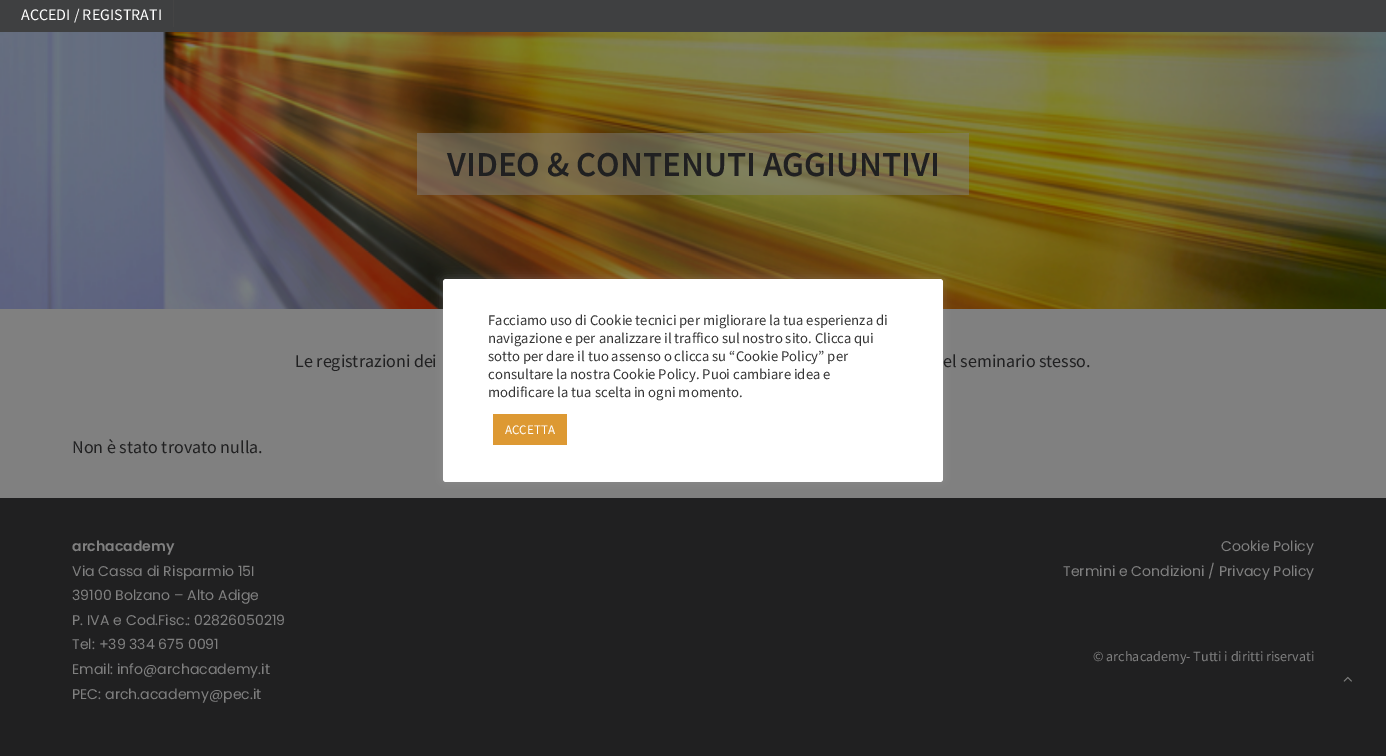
%!PS
<< /PageSize [1386 756] /PageUsesTransparency true >> setpagedevice
/rgb { 3 { 255 div 3 1 roll } repeat setrgbcolor } def
/font { [ exch dup neg 0 0 3 -1 roll 0 0 ] selectfont } def
/text { moveto show } def
/alpha { dup .setfillconstantalpha .setstrokeconstantalpha } def
/roundrect { 5 dict begin { /r /h /w /y /x } { exch def } forall
  x r add y moveto x w add y 2 copy h add r arct x w add y h add x 1 index r arct
  x y h add x y r arct x y 2 copy exch w add exch r arct closepath end } def
/shadow { 12 dict begin { /a /b /q /h /w /y /x } { exch def } forall gsave /was 0 def
  9 -2 -9 { dup b mul 4 div /e exch def 1 sub .425 mul 2.718 exch exp 1 add a .99 .min exch div /now exch def
    1 1 now sub 1 was sub div sub alpha /was now def
    w h .min e 2 mul add 0 gt { x e sub y e sub w e 2 mul add h e 2 mul add
      q e add b .6 mul add w h .min 2 div e add .min 0 .max roundrect fill } if } for grestore end } def
/picture { 5 dict begin { /h /w /y /x /name } { exch def } forall
  gsave x y translate w h scale
  w h 8 [w 0 0 h 0 0] name (r) file false 3 colorimage grestore end } def
0 .pushpdf14devicefilter
0 756 translate 1 -1 scale
4 setmiterlimit
128 128 128 rgb
0 0 1386 756 rectfill
63 64 65 rgb
0 0 1386 32 rectfill
68 68 68 rgb
173 0 1 27 rectfill
(img_01.rgb) 0 32 1386 277 picture
0.5 alpha
128 128 128 rgb
417 133 552 62 rectfill
1 alpha
32 32 33 rgb
0 498 1386 258 rectfill
172 171 171 rgb
443 278 500 203 3 5 0.3 shadow
255 255 255 rgb
443 279 500 203 3 roundrect fill
221 153 51 rgb
493 414 74 31 rectfill
(img_02.rgb) 1343 676 9 6 picture
/SourceSansPro-Regular 16 font
255 255 255 rgb
(ACCEDI / REGISTRATI) 21 20 text
/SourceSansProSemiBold-SemiBold 35 font
32 32 33 rgb
(VIDEO & CONTENUTI AGGIUNTIVI) 447 176 text
/SourceSansPro-Regular 18 font
(Le registrazioni dei) 295 367 text
(el seminario stesso.) 943 367 text
(Non è stato trovato nulla.) 72 453 text
/Poppins-SemiBold 14.1 font
128 128 128 rgb
(archacademy) 72 551 text
/Poppins-Regular 14.1 font
(Via Cassa di Risparmio 15I) 72 576 text
(39100 Bolzano – Alto Adige) 72 600 text
(P. IVA e Cod.Fisc.: 02826050219) 72 625 text
(Tel: +39 334 675 0091) 72 649 text
(Email: info@archacademy.it) 72 674 text
(PEC: arch.academy@pec.it) 72 699 text
(Cookie Policy) 1221 551 text
(Termini e Condizioni / Privacy Policy) 1063 576 text
/SourceSansPro-Regular 14.1 font
(© archacademy- Tutti i diritti riservati) 1093 661 text
/SourceSansPro-Regular 14.7 font
51 51 51 rgb
(Facciamo uso di Cookie tecnici per migliorare la tua esperienza di) 488 325 text
(navigazione e per analizzare il traffico sul nostro sito. Clicca qui) 488 343 text
(sotto per dare il tuo assenso o clicca su “Cookie Policy” per) 488 361 text
(consultare la nostra Cookie Policy. Puoi cambiare idea e) 488 379 text
(modificare la tua scelta in ogni momento.) 488 397 text
/SourceSansPro-Regular 13 font
255 255 255 rgb
(ACCETTA) 505 434 text
.poppdf14devicefilter showpage
